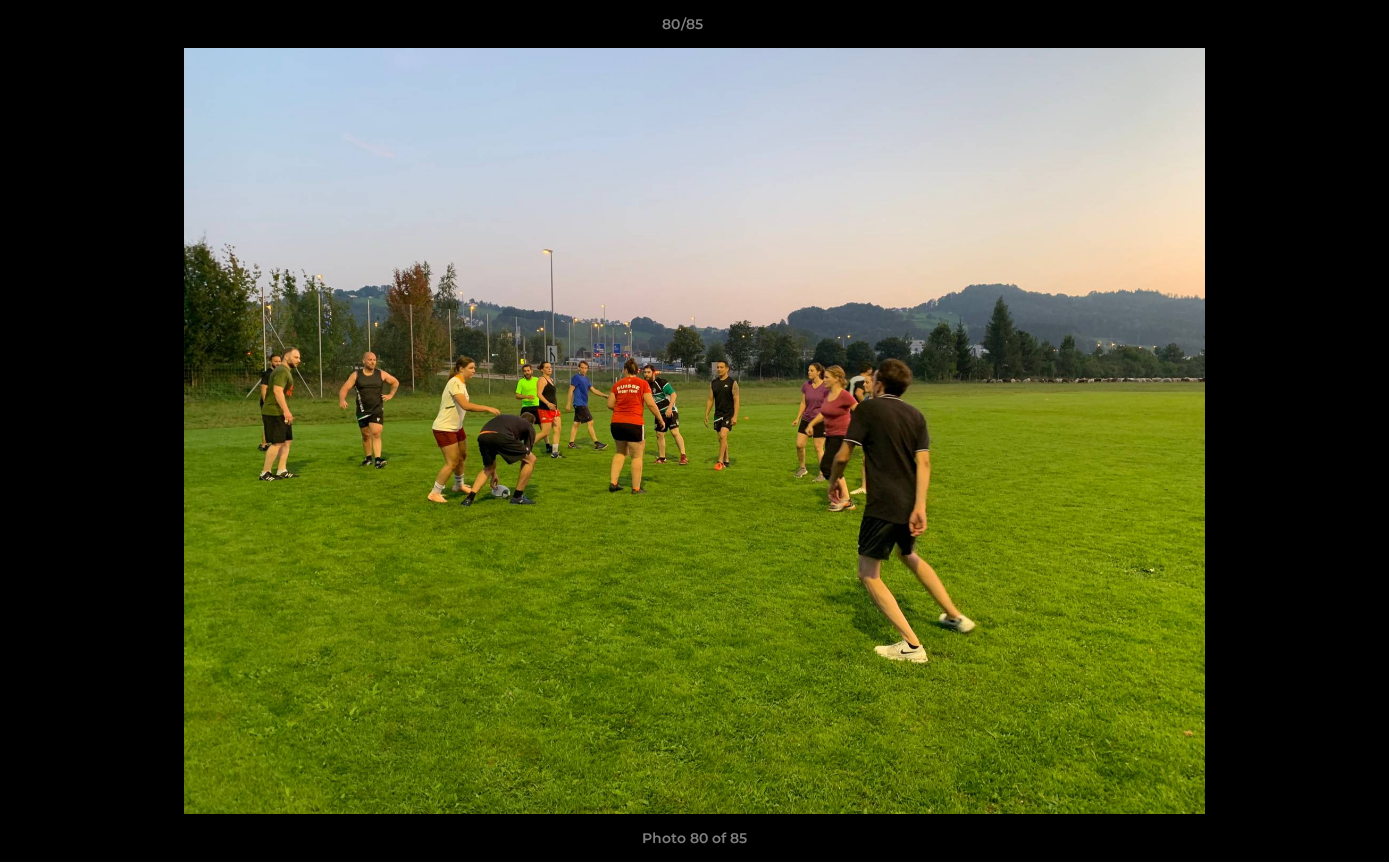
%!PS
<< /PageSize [1389 862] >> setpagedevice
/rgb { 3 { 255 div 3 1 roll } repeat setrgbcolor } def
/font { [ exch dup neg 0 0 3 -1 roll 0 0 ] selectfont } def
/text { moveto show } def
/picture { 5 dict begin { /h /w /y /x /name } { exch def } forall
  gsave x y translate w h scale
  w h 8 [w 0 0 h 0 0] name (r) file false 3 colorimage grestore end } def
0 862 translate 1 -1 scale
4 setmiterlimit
0 0 0 rgb
0 0 1389 862 rectfill
(img_01.rgb) 184 48 1021 766 picture
/Montserrat-SemiBold 14 font
128 128 128 rgb
(80/85) 662 29 text
(Photo 80 of 85) 642 843 text
showpage
